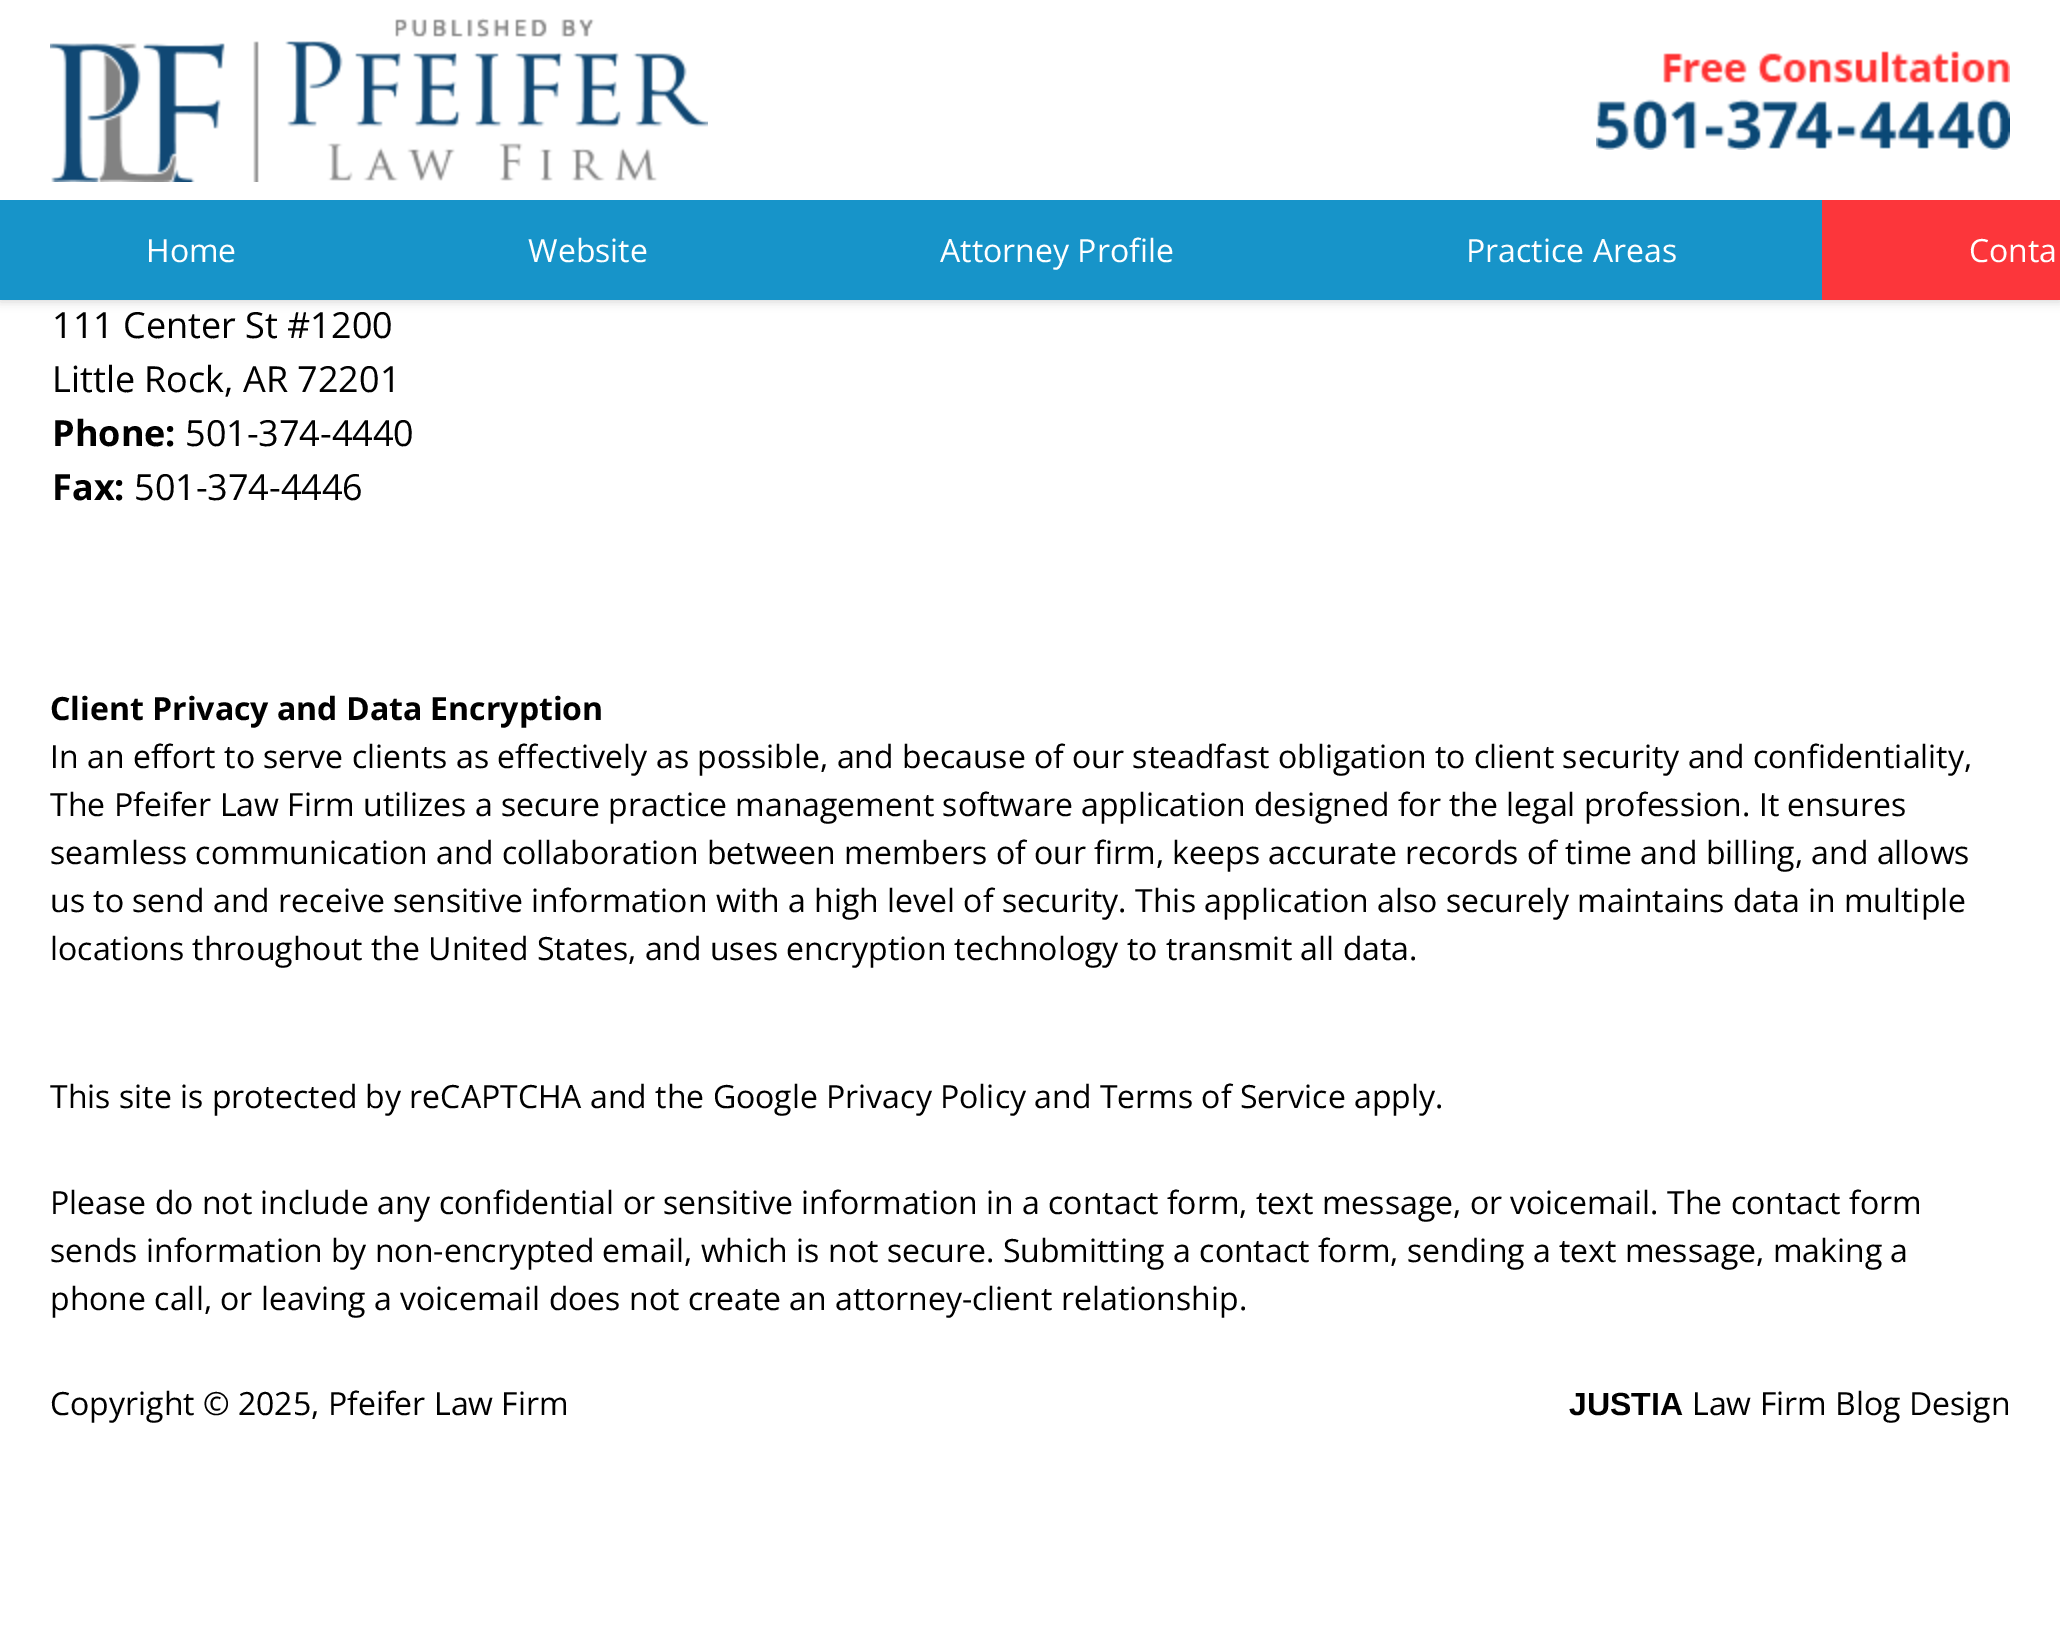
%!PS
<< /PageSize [2060 1627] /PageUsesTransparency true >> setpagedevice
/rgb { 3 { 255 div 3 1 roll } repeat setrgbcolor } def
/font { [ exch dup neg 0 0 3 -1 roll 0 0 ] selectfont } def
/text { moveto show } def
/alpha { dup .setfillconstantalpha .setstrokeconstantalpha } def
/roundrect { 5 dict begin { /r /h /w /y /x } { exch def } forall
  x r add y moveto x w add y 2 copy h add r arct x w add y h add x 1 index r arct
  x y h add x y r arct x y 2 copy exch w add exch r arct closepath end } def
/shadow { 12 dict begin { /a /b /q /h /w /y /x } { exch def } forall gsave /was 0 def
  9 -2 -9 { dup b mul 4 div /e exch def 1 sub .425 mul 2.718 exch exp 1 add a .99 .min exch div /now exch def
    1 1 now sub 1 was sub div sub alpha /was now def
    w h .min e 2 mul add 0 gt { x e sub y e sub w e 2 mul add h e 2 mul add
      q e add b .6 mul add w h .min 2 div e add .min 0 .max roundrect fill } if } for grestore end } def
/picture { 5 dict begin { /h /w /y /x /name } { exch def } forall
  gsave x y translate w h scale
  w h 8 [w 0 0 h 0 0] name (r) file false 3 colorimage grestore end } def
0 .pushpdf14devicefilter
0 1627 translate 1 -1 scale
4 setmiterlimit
255 255 255 rgb
0 0 2060 1627 rectfill
0 0 0 rgb
0 2 2060 300 0 5 0.15 shadow
255 255 255 rgb
0 0 2060 200 rectfill
(img_01.rgb) 50 18 658 164 picture
(img_02.rgb) 1596 51 414 99 picture
23 148 201 rgb
0 200 1822 100 rectfill
252 54 59 rgb
1822 200 238 100 rectfill
/OpenSans-Regular 32 font
255 255 255 rgb
(Home) 146 262 text
(Website) 528 262 text
(Attorney Profile) 940 262 text
(Practice Areas) 1466 262 text
(Conta) 1969 262 text
/OpenSans-Regular 36 font
0 0 0 rgb
(111 Center St #1200) 52 338 text
(Little Rock, AR 72201) 52 392 text
/OpenSans-Bold 36 font
(Phone:) 52 446 text
/OpenSans-Regular 36 font
(501-374-4440) 185 446 text
/OpenSans-Bold 36 font
(Fax:) 52 500 text
/OpenSans-Regular 36 font
(501-374-4446) 134 500 text
/OpenSans-Bold 32 font
(Client Privacy and Data Encryption) 50 720 text
/OpenSans-Regular 32 font
(In an effort to serve clients as effectively as possible, and because of our steadfast obligation to client security and confidentiality,) 50 768 text
(The Pfeifer Law Firm utilizes a secure practice management software application designed for the legal profession. It ensures) 50 816 text
(seamless communication and collaboration between members of our firm, keeps accurate records of time and billing, and allows) 50 864 text
(us to send and receive sensitive information with a high level of security. This application also securely maintains data in multiple) 50 912 text
(locations throughout the United States, and uses encryption technology to transmit all data.) 50 960 text
(This site is protected by reCAPTCHA and the Google Privacy Policy and Terms of Service apply.) 50 1108 text
(Please do not include any confidential or sensitive information in a contact form, text message, or voicemail. The contact form) 50 1214 text
(sends information by non-encrypted email, which is not secure. Submitting a contact form, sending a text message, making a) 50 1262 text
(phone call, or leaving a voicemail does not create an attorney-client relationship.) 50 1310 text
(Copyright © 2025, Pfeifer Law Firm) 50 1415 text
/LiberationSans-Bold 32 font
(JUSTIA) 1569 1415 text
/OpenSans-Regular 32 font
(Law Firm Blog Design) 1692 1415 text
.poppdf14devicefilter showpage
